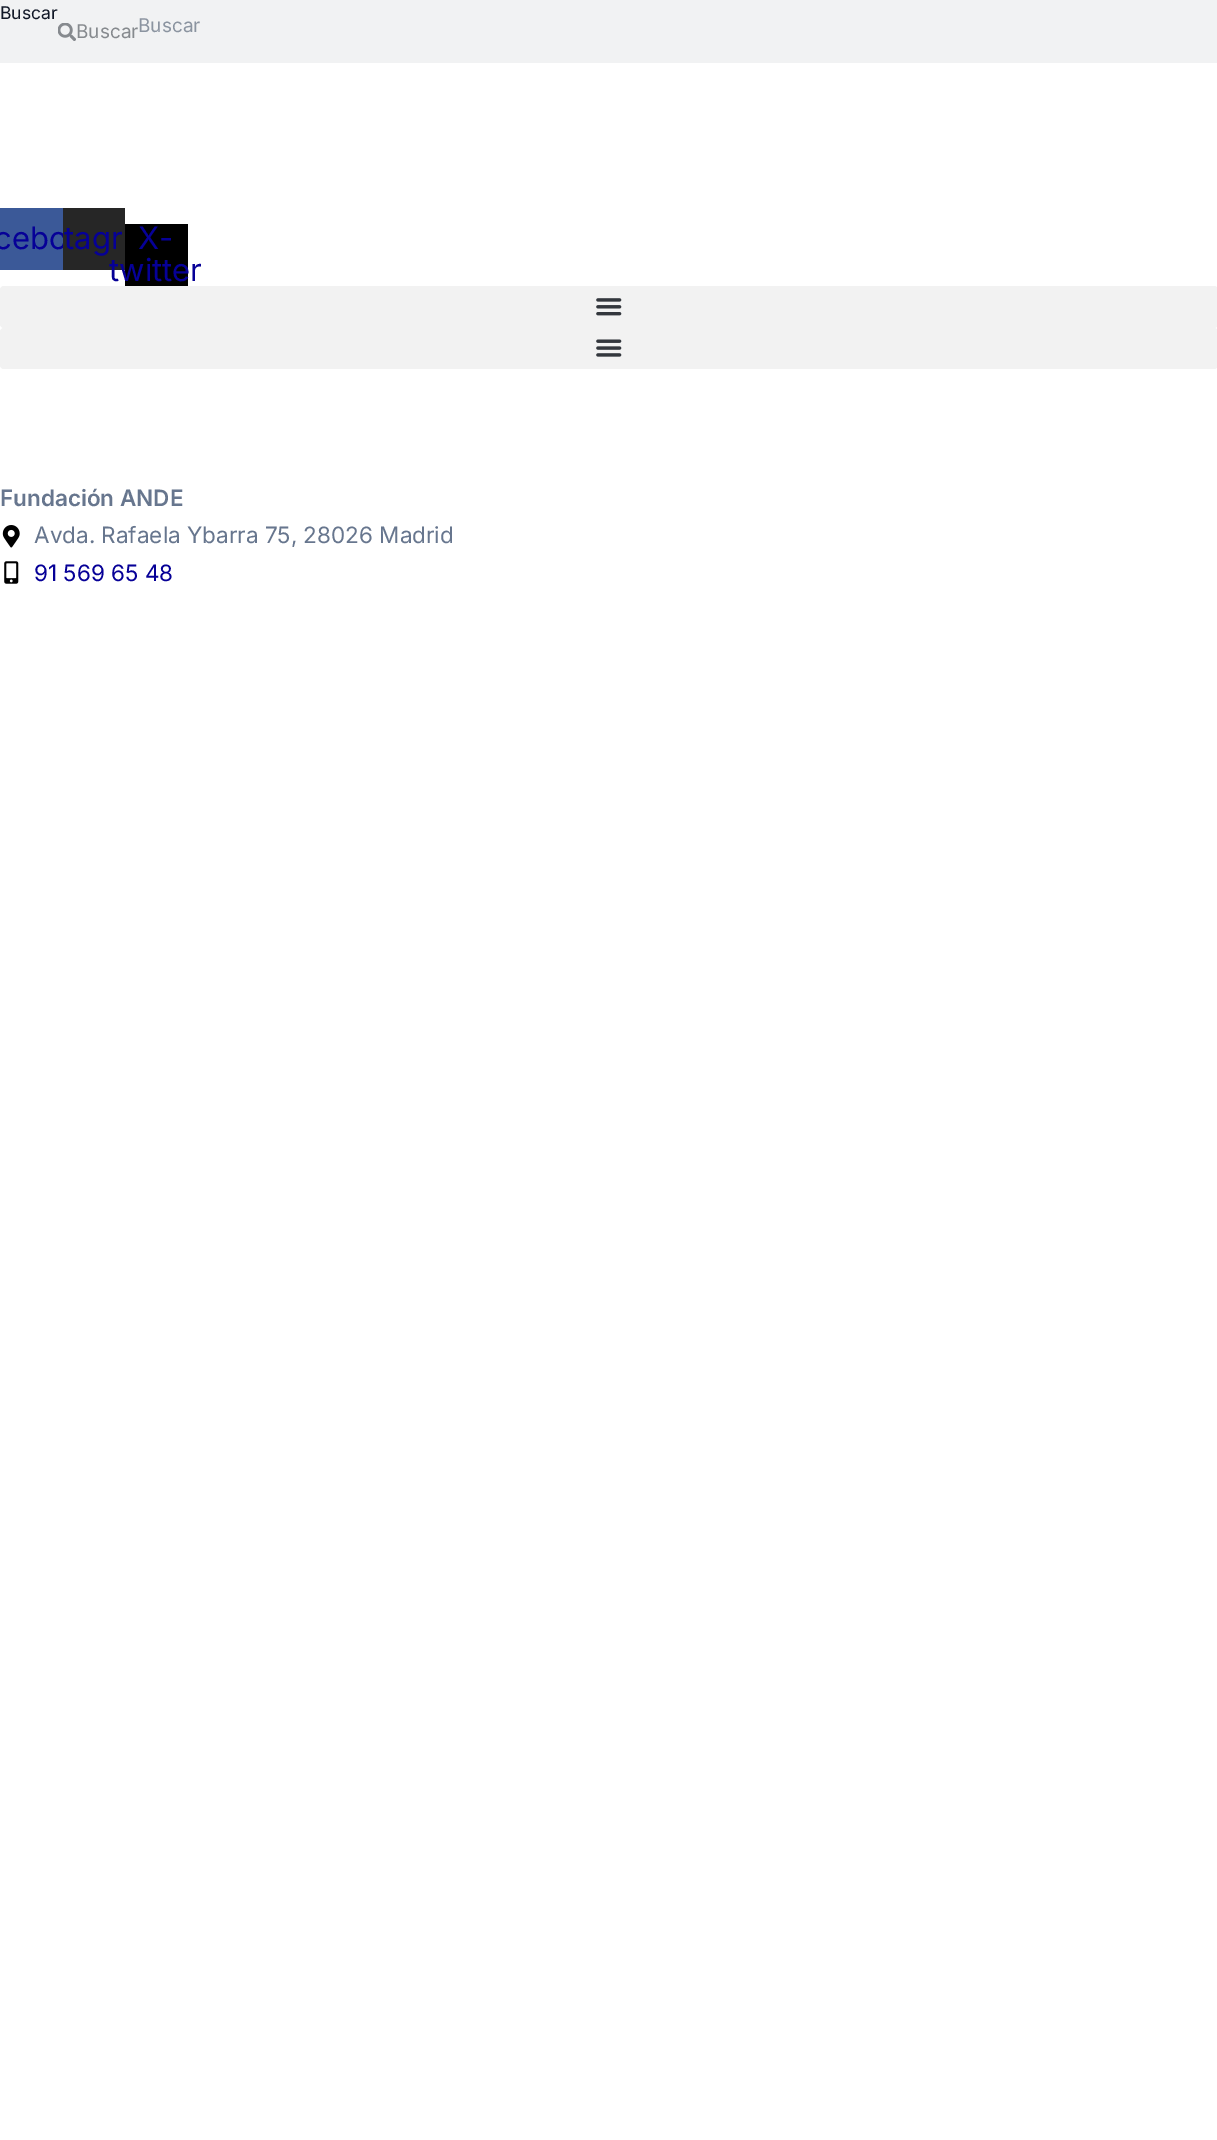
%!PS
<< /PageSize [1217 2140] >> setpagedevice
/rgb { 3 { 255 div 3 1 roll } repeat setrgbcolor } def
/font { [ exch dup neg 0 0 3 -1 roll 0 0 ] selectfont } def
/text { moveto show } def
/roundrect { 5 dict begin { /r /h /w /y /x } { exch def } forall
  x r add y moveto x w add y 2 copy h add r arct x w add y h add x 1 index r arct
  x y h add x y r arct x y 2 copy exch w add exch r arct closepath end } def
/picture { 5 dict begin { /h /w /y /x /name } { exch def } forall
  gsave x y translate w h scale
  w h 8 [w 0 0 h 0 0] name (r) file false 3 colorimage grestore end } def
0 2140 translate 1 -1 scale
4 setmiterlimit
255 255 255 rgb
0 0 1217 2140 rectfill
241 242 243 rgb
0 0 1217 63 rectfill
(img_01.rgb) 58 23 18 18 picture
59 89 152 rgb
0 208 63 62 rectfill
0 0 0 rgb
125 224 63 62 rectfill
242 242 242 rgb
0 286 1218 42 4 roundrect fill
(img_02.rgb) 596 298 26 18 picture
0 328 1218 41 4 roundrect fill
(img_03.rgb) 596 339 26 18 picture
(img_04.rgb) 2 525 18 23 picture
(img_05.rgb) 4 561 15 23 picture
/Inter-Regular 17.5 font
17 24 39 rgb
(Buscar) 0 19 text
/Inter-Regular 19 font
134 138 142 rgb
(Buscar) 76 38 text
139 148 160 rgb
(Buscar) 138 32 text
/Inter-Regular 31 font
6 0 151 rgb
(cebo) -6 249 text
38 38 38 rgb
63 208 62 62 rectfill
6 0 151 rgb
(tagr) 64 249 text
(X-) 138 249 text
(twitter) 109 281 text
/Inter-SemiBold 22.5 font
103 118 142 rgb
(Fundación ANDE) 0 506 text
/Inter-Regular 22.5 font
(Avda. Rafaela Ybarra 75, 28026 Madrid) 34 543 text
6 0 151 rgb
(91 569 65 48) 34 581 text
showpage
